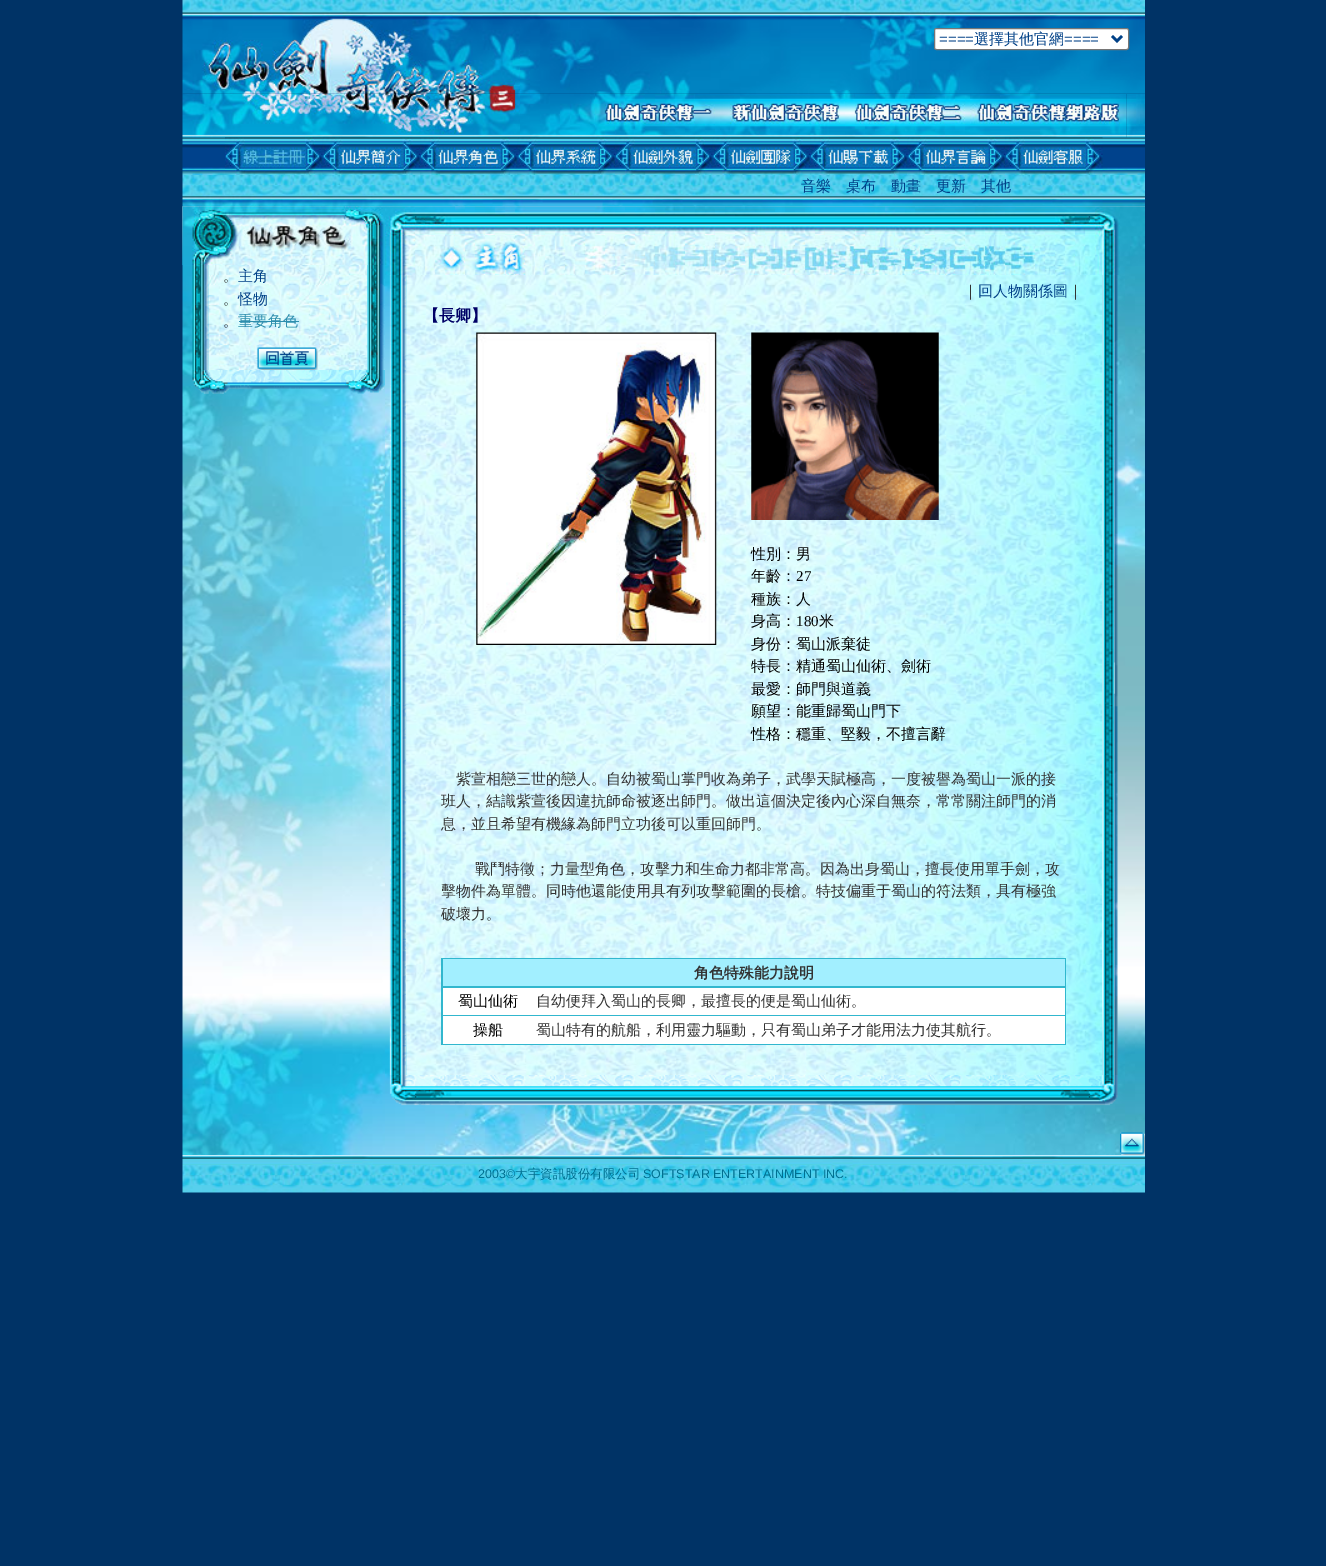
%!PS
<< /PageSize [1326 1566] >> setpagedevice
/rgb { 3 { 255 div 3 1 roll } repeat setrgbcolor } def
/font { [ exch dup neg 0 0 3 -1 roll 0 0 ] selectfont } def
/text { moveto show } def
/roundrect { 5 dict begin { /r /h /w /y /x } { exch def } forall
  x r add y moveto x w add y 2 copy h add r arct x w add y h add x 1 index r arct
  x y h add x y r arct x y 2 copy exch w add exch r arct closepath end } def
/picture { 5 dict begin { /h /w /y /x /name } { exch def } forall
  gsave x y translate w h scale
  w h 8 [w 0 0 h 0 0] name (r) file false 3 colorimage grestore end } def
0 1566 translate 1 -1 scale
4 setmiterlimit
0 51 102 rgb
0 0 1326 1566 rectfill
(img_01.rgb) 182 0 338 94 picture
(img_02.rgb) 520 0 390 94 picture
(img_03.rgb) 910 0 235 94 picture
255 255 255 rgb
934.5 28.5 194 21 2 roundrect gsave fill grestore
118 118 118 rgb
stroke
0 64 135 rgb
2.5 setlinewidth
1112 36 moveto 5 5 rlineto 5 -5 rlineto stroke
(img_11.rgb) 182 137 963 38 picture
(img_04.rgb) 182 93 338 45 picture
(img_05.rgb) 520 93 75 45 picture
(img_06.rgb) 595 93 125 45 picture
(img_07.rgb) 720 93 125 45 picture
(img_08.rgb) 845 93 125 45 picture
(img_09.rgb) 970 93 157 45 picture
(img_10.rgb) 1126 93 19 45 picture
(img_12.rgb) 225 137 98 38 picture
(img_13.rgb) 322 137 98 38 picture
(img_14.rgb) 420 137 98 38 picture
(img_15.rgb) 517 137 98 38 picture
(img_16.rgb) 615 137 98 38 picture
(img_17.rgb) 712 137 98 38 picture
(img_18.rgb) 810 137 98 38 picture
(img_19.rgb) 907 137 98 38 picture
(img_20.rgb) 1005 137 98 38 picture
(img_21.rgb) 182 175 963 32 picture
(img_22.rgb) 182 206 203 949 picture
(img_23.rgb) 182 206 203 59 picture
(img_24.rgb) 192 265 17 105 picture
(img_25.rgb) 208 265 160 105 picture
45 142 174 rgb
239 321 60 1 rectfill
(img_26.rgb) 257 347 61 23 picture
(img_27.rgb) 367 265 18 105 picture
(img_28.rgb) 192 370 193 24 picture
(img_29.rgb) 385 206 760 949 picture
(img_30.rgb) 385 206 330 69 picture
(img_31.rgb) 715 206 405 69 picture
(img_32.rgb) 1120 206 25 60 picture
(img_33.rgb) 389 275 18 800 picture
(img_34.rgb) 406 275 697 800 picture
(img_35.rgb) 476 332 241 313 picture
(img_36.rgb) 751 332 188 188 picture
49 183 206 rgb
441 958 625 87 rectfill
162 239 255 rgb
443 959 622 27 rectfill
255 255 255 rgb
443 988 622 27 rectfill
443 1016 622 28 rectfill
(img_37.rgb) 1102 275 16 800 picture
(img_38.rgb) 389 1075 729 31 picture
(img_39.rgb) 1120 1132 25 23 picture
(img_40.rgb) 182 1155 963 38 picture
/LiberationSans-Regular 15 font
0 64 135 rgb
(====) 939 44 text
/WenQuanYiZenHei-Medium 15 font
(選擇其他官網) 974 44 text
/LiberationSans-Regular 15 font
(====) 1064 44 text
/WenQuanYiZenHei-Medium 15 font
(音樂) 801 191 text
(桌布) 846 191 text
(動畫) 891 191 text
(更新) 936 191 text
(其他) 981 191 text
51 51 51 rgb
(。) 223 281 text
0 64 135 rgb
(主角) 238 281 text
51 51 51 rgb
(。) 223 304 text
0 64 135 rgb
(怪物) 238 304 text
51 51 51 rgb
(。) 223 326 text
45 142 174 rgb
(重要角色) 238 326 text
51 51 51 rgb
(｜) 963 296 text
0 64 135 rgb
(回人物關係圖) 978 296 text
51 51 51 rgb
(｜) 1068 296 text
/WenQuanYiZenHei-Bold 16 font
0 0 102 rgb
(【長卿】) 423 321 text
/WenQuanYiZenHei-Medium 15 font
0 0 0 rgb
(性別：男) 751 559 text
(年齡：) 751 581 text
/LiberationSerif-Regular 15 font
(27) 796 581 text
/WenQuanYiZenHei-Medium 15 font
(種族：人) 751 604 text
(身高：) 751 626 text
/LiberationSerif-Regular 15 font
(180) 796 626 text
/WenQuanYiZenHei-Medium 15 font
(米) 819 626 text
(身份：蜀山派棄徒) 751 649 text
(特長：精通蜀山仙術、劍術) 751 671 text
(最愛：師門與道義) 751 694 text
(願望：能重歸蜀山門下) 751 716 text
(性格：穩重、堅毅，不擅言辭) 751 739 text
51 51 51 rgb
(紫萱相戀三世的戀人。自幼被蜀山掌門收為弟子，武學天賦極高，一度被譽為蜀山一派的接) 456 784 text
(班人，結識紫萱後因違抗師命被逐出師門。做出這個決定後內心深自無奈，常常關注師門的消) 441 806 text
(息，並且希望有機緣為師門立功後可以重回師門。) 441 829 text
(戰鬥特徵；力量型角色，攻擊力和生命力都非常高。因為出身蜀山，擅長使用單手劍，攻) 475 874 text
(擊物件為單體。同時他還能使用具有列攻擊範圍的長槍。特技偏重于蜀山的符法類，具有極強) 441 896 text
(破壞力。) 441 919 text
/WenQuanYiZenHei-Bold 15 font
(角色特殊能力說明) 694 978 text
/WenQuanYiZenHei-Medium 15 font
0 0 0 rgb
(蜀山仙術) 458 1006 text
51 51 51 rgb
(自幼便拜入蜀山的長卿，最擅長的便是蜀山仙術。) 536 1006 text
0 0 0 rgb
(操船) 473 1035 text
51 51 51 rgb
(蜀山特有的航船，利用靈力驅動，只有蜀山弟子才能用法力使其航行。) 536 1035 text
/LiberationSans-Regular 12.5 font
0 112 145 rgb
(2003©) 478 1178 text
/WenQuanYiZenHei-Medium 12.5 font
(大宇資訊股份有限公司) 515 1178 text
/LiberationSans-Regular 12.5 font
(SOFTSTAR ENTERTAINMENT INC.) 643 1178 text
showpage
